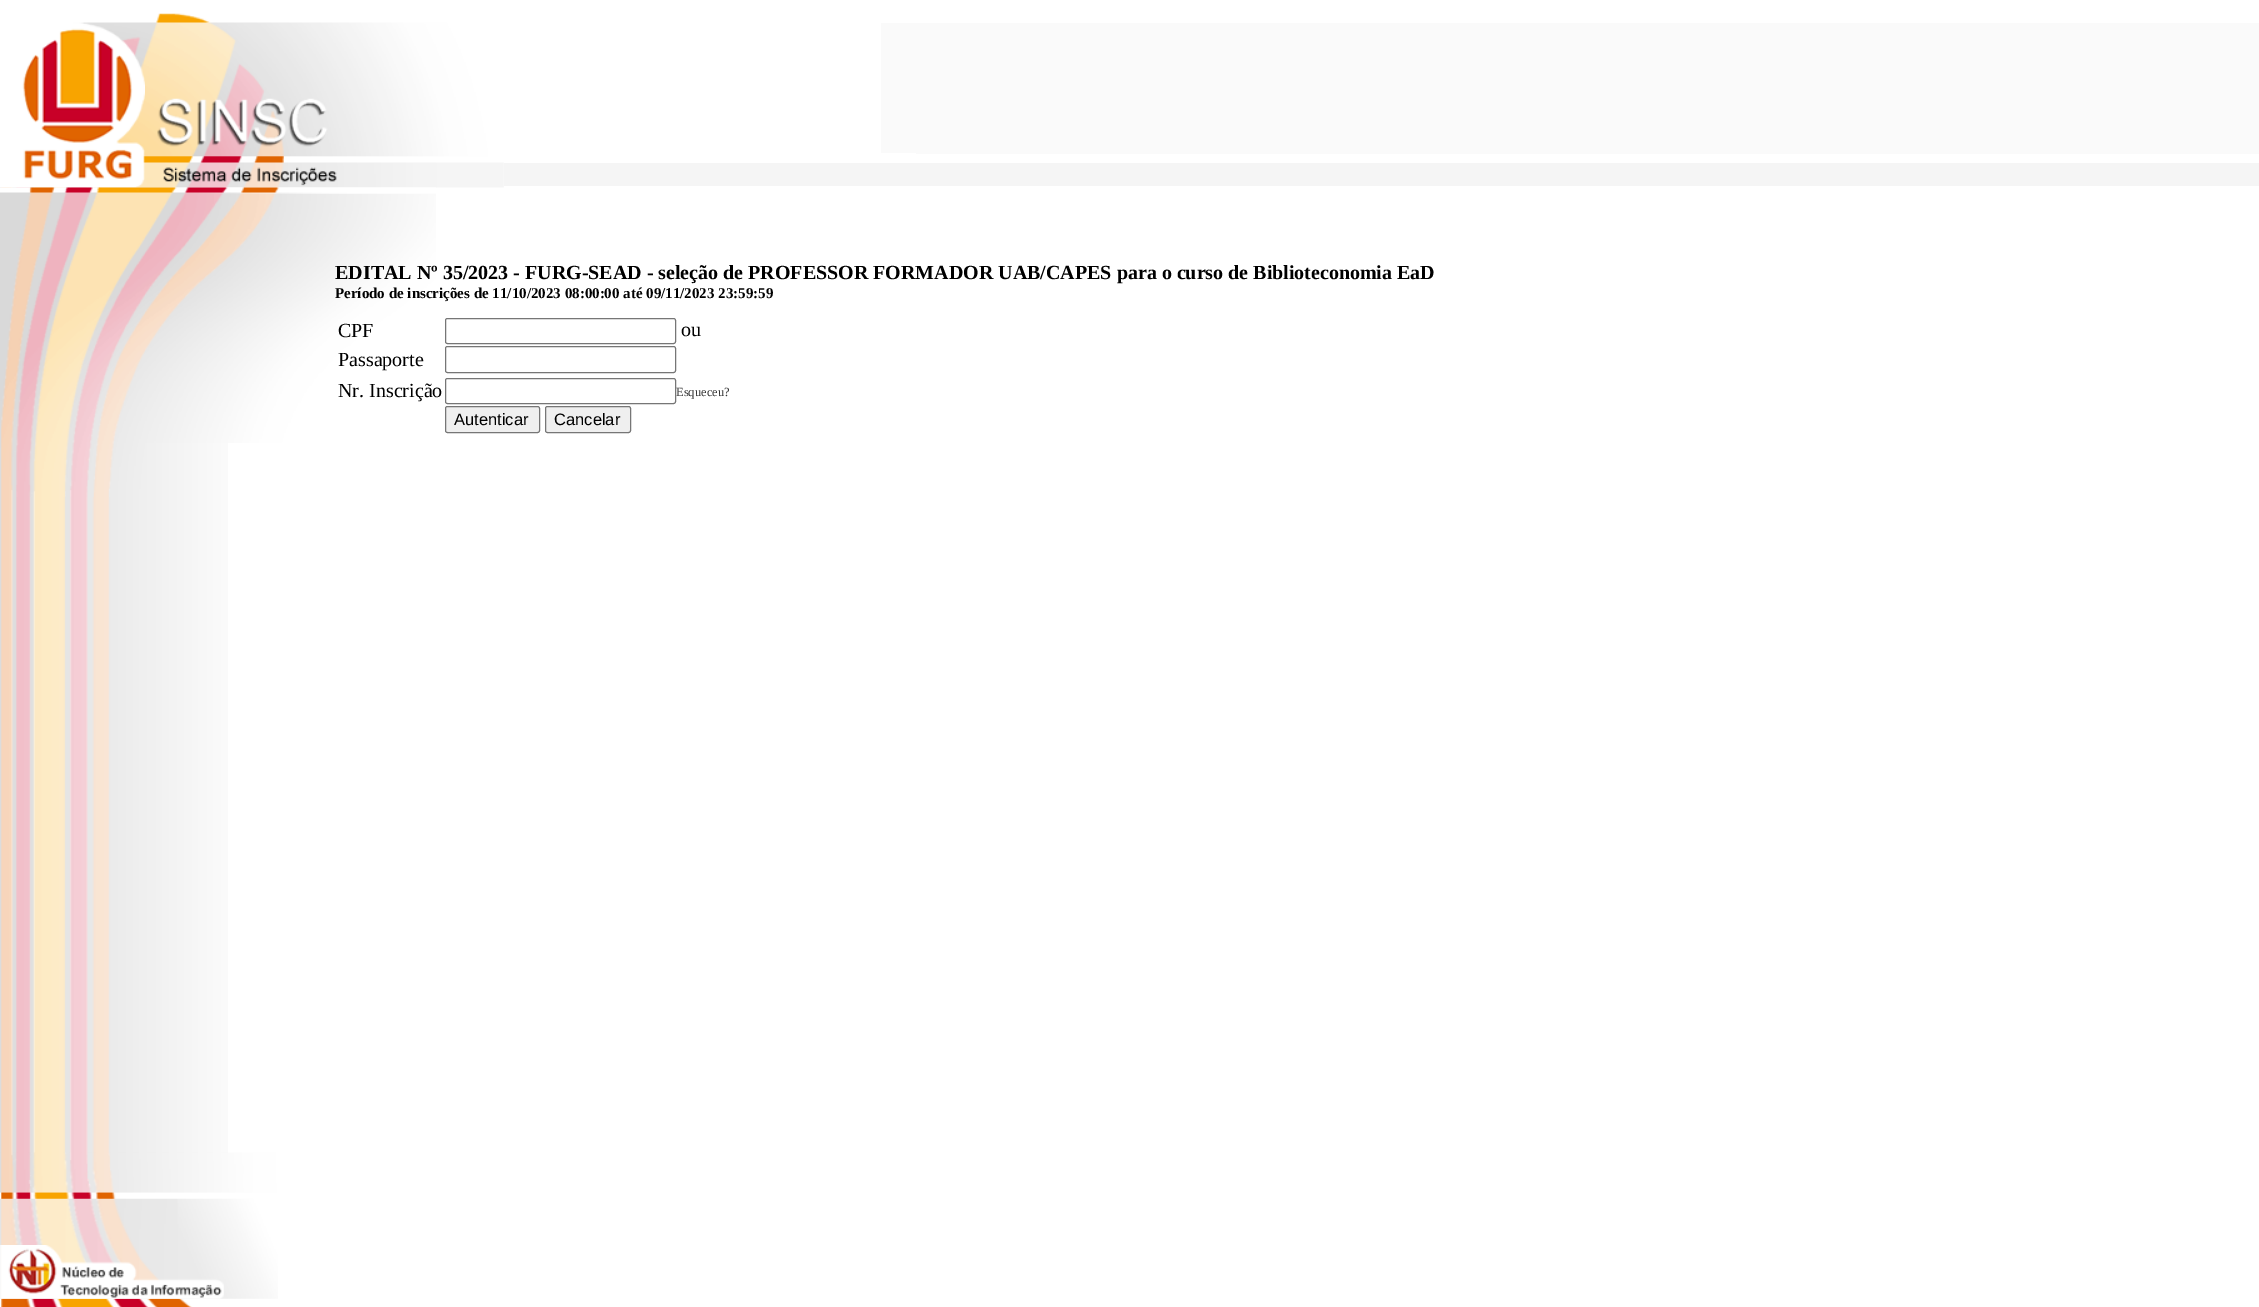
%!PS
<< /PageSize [2259 1307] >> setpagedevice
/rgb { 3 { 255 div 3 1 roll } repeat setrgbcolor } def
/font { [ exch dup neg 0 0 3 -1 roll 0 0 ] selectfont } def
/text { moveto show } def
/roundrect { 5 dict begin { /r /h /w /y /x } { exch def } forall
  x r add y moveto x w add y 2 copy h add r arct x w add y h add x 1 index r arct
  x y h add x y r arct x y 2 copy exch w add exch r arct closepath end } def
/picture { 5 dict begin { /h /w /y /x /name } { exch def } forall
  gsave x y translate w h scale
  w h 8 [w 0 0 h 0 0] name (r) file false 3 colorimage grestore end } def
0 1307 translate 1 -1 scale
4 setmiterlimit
255 255 255 rgb
0 0 2259 1307 rectfill
(img_01.rgb) 0 187 228 966 picture
(img_02.rgb) 0 0 145 188 picture
(img_03.rgb) 145 0 359 188 picture
250 250 250 rgb
881 23 35 130 rectfill
916 23 1343 131 rectfill
245 245 245 rgb
504 163 1755 23 rectfill
(img_04.rgb) 0 187 145 310 picture
(img_05.rgb) 145 187 291 256 picture
118 118 118 rgb
445.5 318.5 230 25 2 roundrect stroke
445.5 346.5 230 26 2 roundrect stroke
445.5 378.5 230 25 2 roundrect stroke
239 239 239 rgb
445.5 406.5 94 26 2 roundrect gsave fill grestore
118 118 118 rgb
stroke
239 239 239 rgb
545.5 406.5 85 26 2 roundrect gsave fill grestore
118 118 118 rgb
stroke
(img_06.rgb) 0 1152 278 155 picture
(img_07.rgb) 0 1245 224 54 picture
/LiberationSerif-Bold 20 font
0 0 0 rgb
(EDITAL Nº 35/2023 - FURG-SEAD - seleção de PROFESSOR FORMADOR UAB/CAPES para o curso de Biblioteconomia EaD) 335 279 text
/LiberationSerif-Bold 15 font
(Período de inscrições de 11/10/2023 08:00:00 até 09/11/2023 23:59:59) 335 298 text
/LiberationSerif-Regular 20 font
(CPF) 338 337 text
(ou) 681 336 text
(Passaporte) 338 366 text
(Nr. Inscrição) 338 397 text
/LiberationSerif-Regular 12.5 font
51 51 51 rgb
(Esqueceu?) 676 396 text
/LiberationSans-Regular 16.5 font
0 0 0 rgb
(Autenticar) 454 425 text
(Cancelar) 554 425 text
showpage
